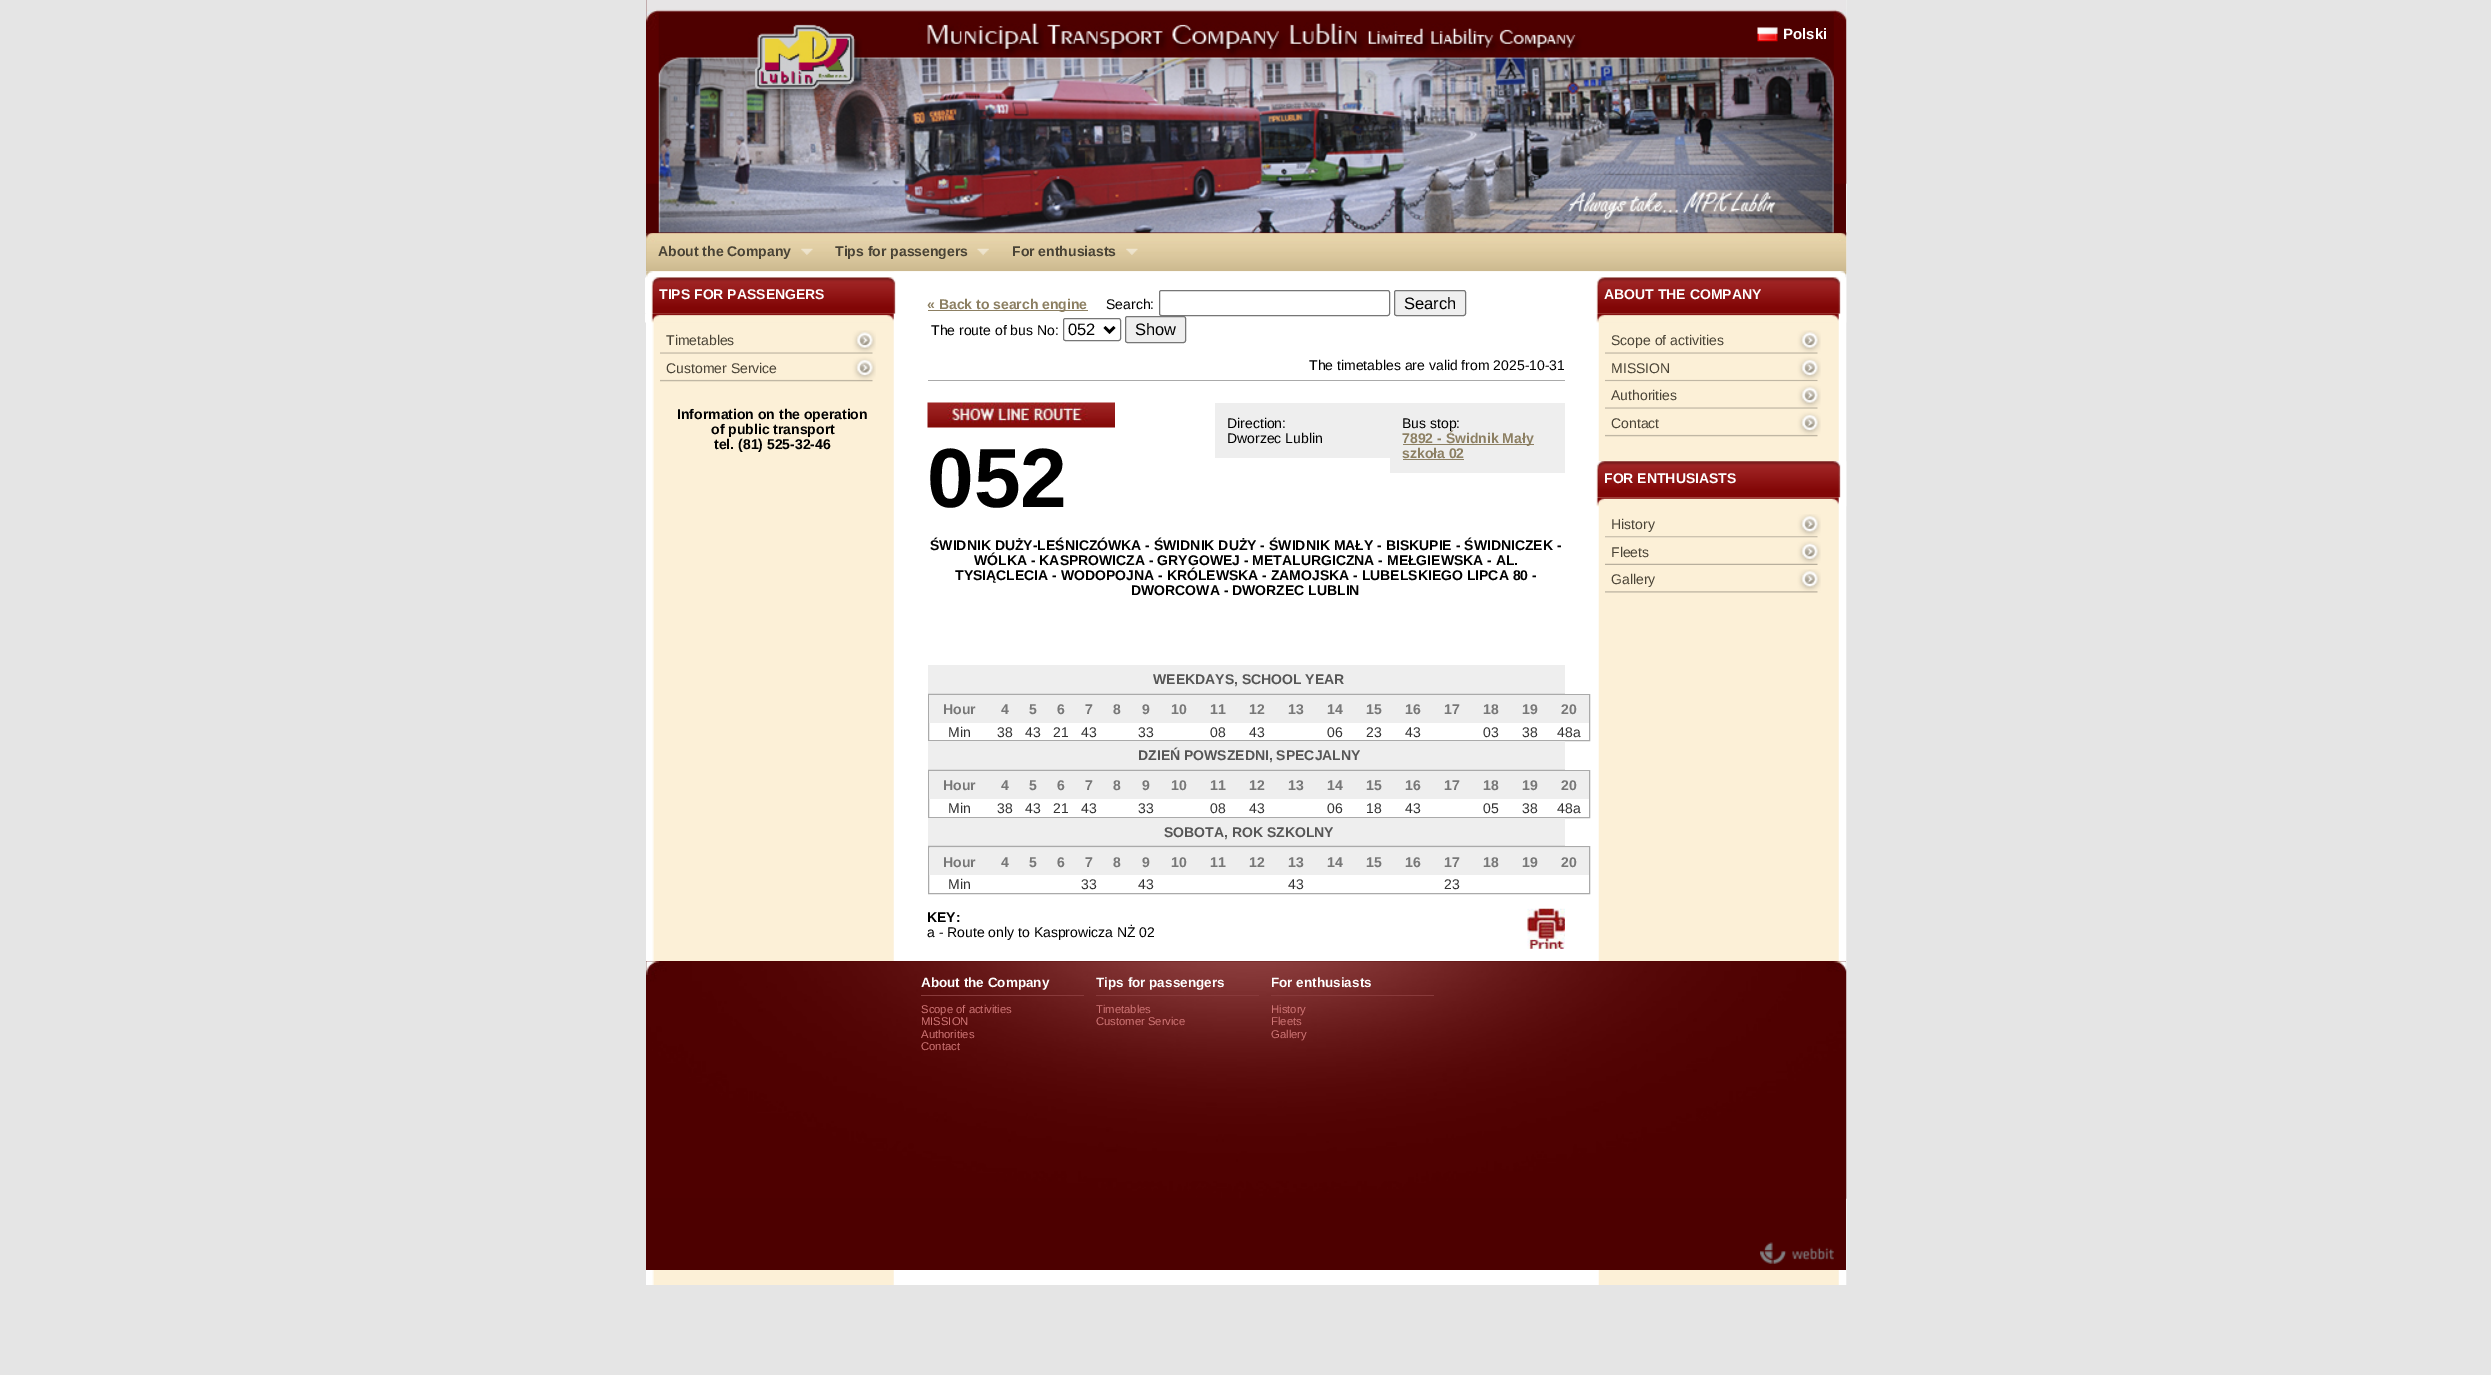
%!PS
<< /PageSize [2491 1375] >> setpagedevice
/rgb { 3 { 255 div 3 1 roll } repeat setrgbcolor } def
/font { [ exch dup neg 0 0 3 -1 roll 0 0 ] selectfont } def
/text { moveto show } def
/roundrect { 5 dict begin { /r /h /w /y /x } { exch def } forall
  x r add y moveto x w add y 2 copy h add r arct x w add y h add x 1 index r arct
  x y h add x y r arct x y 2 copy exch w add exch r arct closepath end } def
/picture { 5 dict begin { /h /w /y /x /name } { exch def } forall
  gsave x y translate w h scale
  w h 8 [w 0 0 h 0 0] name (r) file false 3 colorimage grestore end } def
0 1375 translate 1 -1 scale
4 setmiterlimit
229 229 229 rgb
0 0 2491 1375 rectfill
255 255 255 rgb
646 233 6 1052 rectfill
(img_01.rgb) 652 0 1195 1285 picture
(img_05.rgb) 646 232 1201 40 picture
78 0 0 rgb
646 0 1200 233 rectfill
(img_02.rgb) 646 0 1201 184 picture
(img_03.rgb) 658 12 1176 221 picture
(img_04.rgb) 1757 27 21 15 picture
(img_06.rgb) 801 248 12 7 picture
(img_07.rgb) 977 248 12 8 picture
(img_08.rgb) 1126 248 12 7 picture
(img_09.rgb) 646 271 1201 7 picture
(img_10.rgb) 645 277 251 37 picture
(img_11.rgb) 645 313 251 10 picture
(img_12.rgb) 660 330 216 24 picture
(img_13.rgb) 660 353 216 29 picture
140 127 98 rgb
928 310 160 1 rectfill
118 118 118 rgb
1159.5 290.5 230 25 2 roundrect stroke
239 239 239 rgb
1394.5 290.5 71 25 2 roundrect gsave fill grestore
118 118 118 rgb
stroke
1063.5 318.5 57 22 2 roundrect stroke
0 0 0 rgb
2.5 setlinewidth
1104.5 327 moveto 5 5 rlineto 5 -5 rlineto stroke
239 239 239 rgb
1125.5 316.5 60 26 2 roundrect gsave fill grestore
118 118 118 rgb
1 setlinewidth
stroke
170 170 170 rgb
928 380 637 1 rectfill
(img_14.rgb) 927 402 188 26 picture
238 238 238 rgb
1215 403 175 55 rectfill
1390 403 175 70 rectfill
140 127 98 rgb
1403 444 131 1 rectfill
1403 459 61 1 rectfill
238 238 238 rgb
928 665 637 28 rectfill
221 221 221 rgb
928 693 637 1 rectfill
170 170 170 rgb
928.5 694.5 661 46 rectstroke
238 238 238 rgb
929 695 660 28 rectfill
928 741 637 28 rectfill
221 221 221 rgb
928 769 637 1 rectfill
170 170 170 rgb
928.5 770.5 661 47 rectstroke
238 238 238 rgb
929 771 660 28 rectfill
928 818 637 27 rectfill
221 221 221 rgb
928 845 637 1 rectfill
170 170 170 rgb
928.5 846.5 661 47 rectstroke
238 238 238 rgb
929 848 660 27 rectfill
(img_15.rgb) 1527 908 38 41 picture
(img_16.rgb) 1596 277 251 37 picture
(img_17.rgb) 1596 313 251 10 picture
(img_12.rgb) 1605 330 216 24 picture
(img_13.rgb) 1605 353 216 29 picture
(img_18.rgb) 1605 381 216 28 picture
(img_13.rgb) 1605 408 216 29 picture
(img_19.rgb) 1596 461 251 37 picture
(img_20.rgb) 1596 497 251 10 picture
(img_21.rgb) 1605 514 216 24 picture
(img_22.rgb) 1605 537 216 28 picture
(img_21.rgb) 1605 569 216 24 picture
77 0 0 rgb
646 961 1200 309 rectfill
(img_23.rgb) 646 961 1201 238 picture
136 58 59 rgb
921 995 163 1 rectfill
1096 995 163 1 rectfill
1271 995 163 1 rectfill
(img_24.rgb) 1760 1242 74 22 picture
/LiberationSans-Bold 15 font
255 255 255 rgb
(Polski) 1783 39 text
/LiberationSans-Bold 14 font
73 67 54 rgb
(About the Company) 658 256 text
(Tips for passengers) 835 256 text
(For enthusiasts) 1012 256 text
255 255 255 rgb
(TIPS FOR PASSENGERS) 659 299 text
/LiberationSans-Regular 14 font
73 67 54 rgb
(Timetables) 666 345 text
(Customer Service) 666 373 text
/LiberationSans-Bold 14 font
0 0 0 rgb
(Information on the operation) 677 419 text
(of public transport) 711 434 text
(tel. \(81\) 525-32-46) 714 449 text
140 127 98 rgb
(« Back to search engine) 927 309 text
/LiberationSans-Regular 14 font
0 0 0 rgb
(Search:) 1106 309 text
/LiberationSans-Regular 16.5 font
(Search) 1404 309 text
/LiberationSans-Regular 14 font
(The route of bus No:) 931 335 text
/LiberationSans-Regular 16.5 font
(052) 1068 335 text
(Show) 1135 335 text
/LiberationSans-Regular 14 font
(The timetables are valid from 2025-10-31) 1309 370 text
(Direction:) 1227 428 text
(Dworzec Lublin) 1227 443 text
(Bus stop:) 1402 428 text
/LiberationSans-Bold 14 font
140 127 98 rgb
(7892 - Świdnik Mały) 1402 443 text
(szkoła 02) 1402 458 text
/LiberationSans-Bold 84 font
0 0 0 rgb
(052) 927 507 text
/LiberationSans-Bold 14 font
(ŚWIDNIK DUŻY-LEŚNICZÓWKA - ŚWIDNIK DUŻY - ŚWIDNIK MAŁY - BISKUPIE - ŚWIDNICZEK -) 930 550 text
(WÓLKA - KASPROWICZA - GRYGOWEJ - METALURGICZNA - MEŁGIEWSKA - AL.) 974 565 text
(TYSIĄCLECIA - WODOPOJNA - KRÓLEWSKA - ZAMOJSKA - LUBELSKIEGO LIPCA 80 -) 955 580 text
(DWORCOWA - DWORZEC LUBLIN) 1131 595 text
85 85 85 rgb
(WEEKDAYS, SCHOOL YEAR) 1153 684 text
119 119 119 rgb
(Hour) 943 714 text
(4) 1001 714 text
(5) 1029 714 text
(6) 1057 714 text
(7) 1085 714 text
(8) 1113 714 text
(9) 1142 714 text
(10) 1171 714 text
(11) 1210 714 text
(12) 1249 714 text
(13) 1288 714 text
(14) 1327 714 text
(15) 1366 714 text
(16) 1405 714 text
(17) 1444 714 text
(18) 1483 714 text
(19) 1522 714 text
(20) 1561 714 text
/LiberationSans-Regular 14 font
51 51 51 rgb
(Min) 948 737 text
(38) 997 737 text
(43) 1025 737 text
(21) 1053 737 text
(43) 1081 737 text
(33) 1138 737 text
(08) 1210 737 text
(43) 1249 737 text
(06) 1327 737 text
(23) 1366 737 text
(43) 1405 737 text
(03) 1483 737 text
(38) 1522 737 text
(48a) 1557 737 text
/LiberationSans-Bold 14 font
85 85 85 rgb
(DZIEŃ POWSZEDNI, SPECJALNY) 1138 760 text
119 119 119 rgb
(Hour) 943 790 text
(4) 1001 790 text
(5) 1029 790 text
(6) 1057 790 text
(7) 1085 790 text
(8) 1113 790 text
(9) 1142 790 text
(10) 1171 790 text
(11) 1210 790 text
(12) 1249 790 text
(13) 1288 790 text
(14) 1327 790 text
(15) 1366 790 text
(16) 1405 790 text
(17) 1444 790 text
(18) 1483 790 text
(19) 1522 790 text
(20) 1561 790 text
/LiberationSans-Regular 14 font
51 51 51 rgb
(Min) 948 813 text
(38) 997 813 text
(43) 1025 813 text
(21) 1053 813 text
(43) 1081 813 text
(33) 1138 813 text
(08) 1210 813 text
(43) 1249 813 text
(06) 1327 813 text
(18) 1366 813 text
(43) 1405 813 text
(05) 1483 813 text
(38) 1522 813 text
(48a) 1557 813 text
/LiberationSans-Bold 14 font
85 85 85 rgb
(SOBOTA, ROK SZKOLNY) 1164 837 text
119 119 119 rgb
(Hour) 943 867 text
(4) 1001 867 text
(5) 1029 867 text
(6) 1057 867 text
(7) 1085 867 text
(8) 1113 867 text
(9) 1142 867 text
(10) 1171 867 text
(11) 1210 867 text
(12) 1249 867 text
(13) 1288 867 text
(14) 1327 867 text
(15) 1366 867 text
(16) 1405 867 text
(17) 1444 867 text
(18) 1483 867 text
(19) 1522 867 text
(20) 1561 867 text
/LiberationSans-Regular 14 font
51 51 51 rgb
(Min) 948 889 text
(33) 1081 889 text
(43) 1138 889 text
(43) 1288 889 text
(23) 1444 889 text
/LiberationSans-Bold 14 font
0 0 0 rgb
(KEY:) 927 922 text
/LiberationSans-Regular 14 font
(a - Route only to Kasprowicza NŻ 02) 927 937 text
/LiberationSans-Bold 14 font
255 255 255 rgb
(ABOUT THE COMPANY) 1604 299 text
/LiberationSans-Regular 14 font
73 67 54 rgb
(Scope of activities) 1611 345 text
(MISSION) 1611 373 text
(Authorities) 1611 400 text
(Contact) 1611 428 text
/LiberationSans-Bold 14 font
255 255 255 rgb
(FOR ENTHUSIASTS) 1604 483 text
/LiberationSans-Regular 14 font
73 67 54 rgb
(History) 1611 529 text
(Fleets) 1611 557 text
(Gallery) 1611 584 text
/LiberationSans-Bold 13.5 font
255 255 255 rgb
(About the Company) 921 987 text
/LiberationSans-Regular 11.25 font
208 118 118 rgb
(Scope of activities) 921 1013 text
(MISSION) 921 1025 text
(Authorities) 921 1038 text
(Contact) 921 1050 text
/LiberationSans-Bold 13.5 font
255 255 255 rgb
(Tips for passengers) 1096 987 text
/LiberationSans-Regular 11.25 font
208 118 118 rgb
(Timetables) 1096 1013 text
(Customer Service) 1096 1025 text
/LiberationSans-Bold 13.5 font
255 255 255 rgb
(For enthusiasts) 1271 987 text
/LiberationSans-Regular 11.25 font
208 118 118 rgb
(History) 1271 1013 text
(Fleets) 1271 1025 text
(Gallery) 1271 1038 text
showpage
